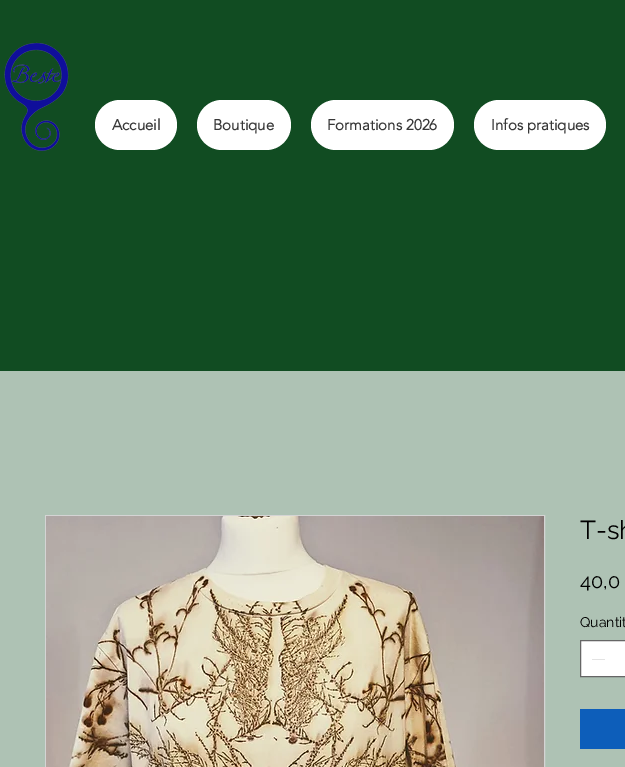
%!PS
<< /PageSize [625 767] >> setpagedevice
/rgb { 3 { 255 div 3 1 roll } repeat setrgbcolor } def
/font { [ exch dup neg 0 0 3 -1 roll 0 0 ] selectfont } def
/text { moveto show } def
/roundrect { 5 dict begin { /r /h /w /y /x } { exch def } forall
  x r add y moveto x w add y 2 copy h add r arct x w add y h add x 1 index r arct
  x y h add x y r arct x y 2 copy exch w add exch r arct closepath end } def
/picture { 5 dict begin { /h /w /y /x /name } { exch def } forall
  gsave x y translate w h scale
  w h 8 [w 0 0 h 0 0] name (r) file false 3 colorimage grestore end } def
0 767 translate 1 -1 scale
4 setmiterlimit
17 76 34 rgb
0 0 625 767 rectfill
(img_01.rgb) 4 42 65 109 picture
255 255 255 rgb
95 100 82 50 25 roundrect fill
197 100 94 50 25 roundrect fill
311 100 143 50 25 roundrect fill
474 100 132 50 25 roundrect fill
174 194 180 rgb
0 371 625 396 rectfill
212 212 212 rgb
45.5 515.5 499 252 rectstroke
(img_02.rgb) 46 516 498 251 picture
255 255 255 rgb
580.5 640.5 moveto 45 0 rlineto 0 36 rlineto -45 0 rlineto closepath gsave fill grestore
102 102 102 rgb
stroke
227 227 227 rgb
592 659 13 1 rectfill
13 94 186 rgb
580 709 45 40 rectfill
/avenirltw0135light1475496-Bold 15 font
56 56 56 rgb
(Accueil) 112 130 text
(Boutique) 213 130 text
(Formations 2026) 327 130 text
(Infos pratiques) 491 130 text
/Raleway-Regular 26 font
0 0 0 rgb
(T-sh) 580 539 text
/Raleway-Regular 20 font
(40,0) 580 588 text
/Raleway-Regular 14 font
(Quantit) 580 627 text
showpage
